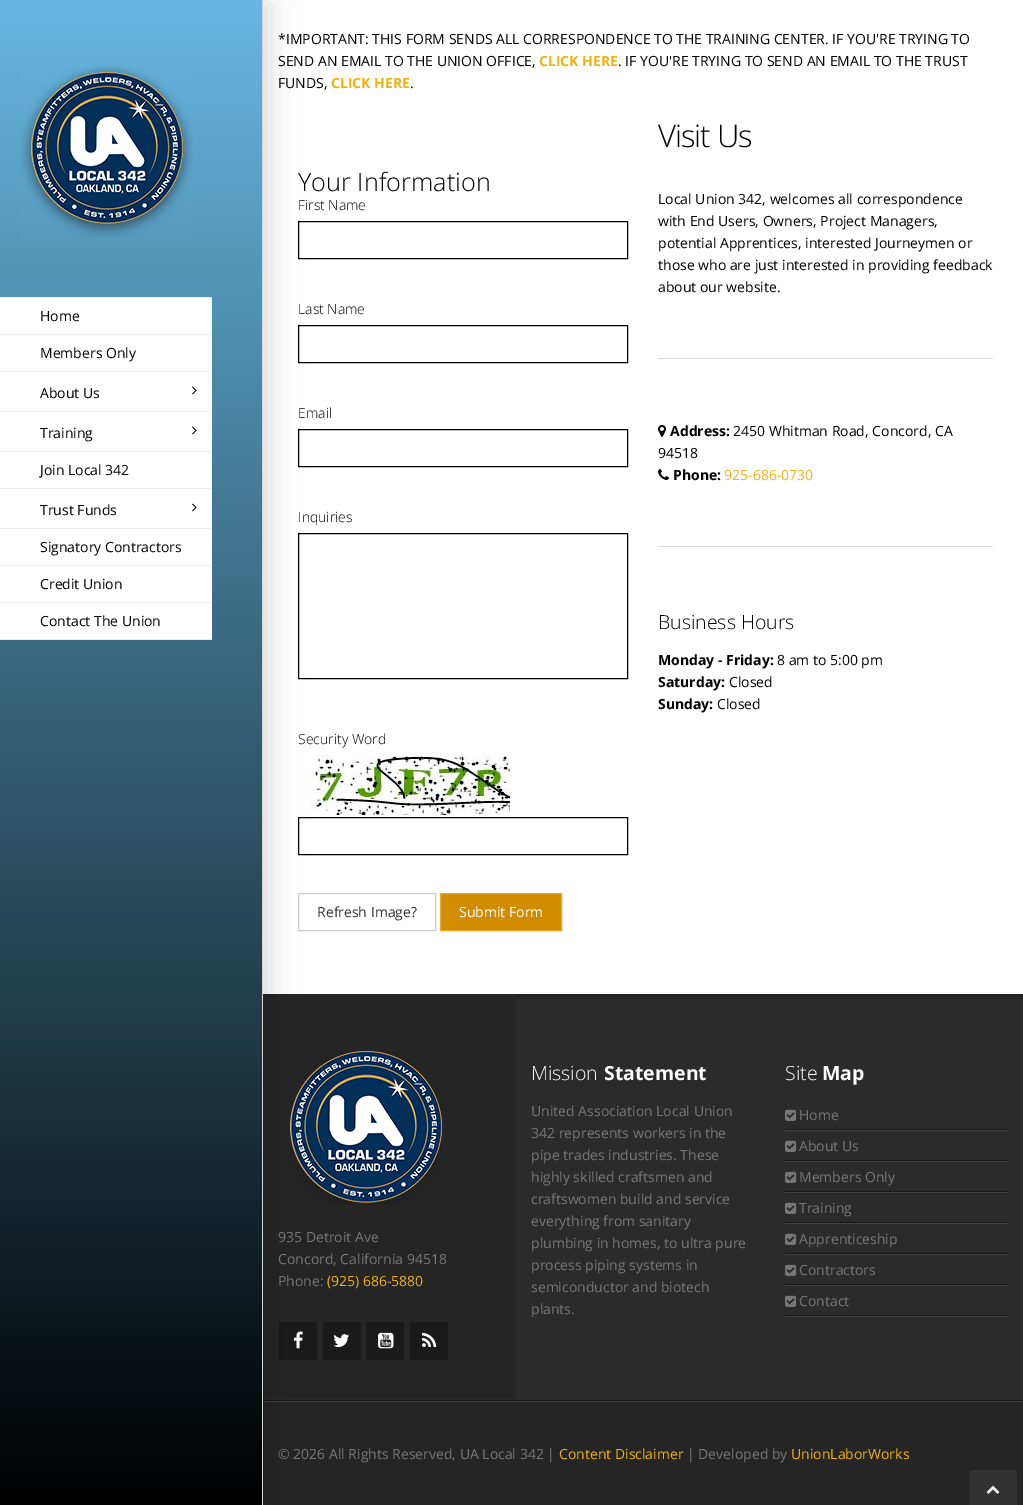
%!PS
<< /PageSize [1023 1505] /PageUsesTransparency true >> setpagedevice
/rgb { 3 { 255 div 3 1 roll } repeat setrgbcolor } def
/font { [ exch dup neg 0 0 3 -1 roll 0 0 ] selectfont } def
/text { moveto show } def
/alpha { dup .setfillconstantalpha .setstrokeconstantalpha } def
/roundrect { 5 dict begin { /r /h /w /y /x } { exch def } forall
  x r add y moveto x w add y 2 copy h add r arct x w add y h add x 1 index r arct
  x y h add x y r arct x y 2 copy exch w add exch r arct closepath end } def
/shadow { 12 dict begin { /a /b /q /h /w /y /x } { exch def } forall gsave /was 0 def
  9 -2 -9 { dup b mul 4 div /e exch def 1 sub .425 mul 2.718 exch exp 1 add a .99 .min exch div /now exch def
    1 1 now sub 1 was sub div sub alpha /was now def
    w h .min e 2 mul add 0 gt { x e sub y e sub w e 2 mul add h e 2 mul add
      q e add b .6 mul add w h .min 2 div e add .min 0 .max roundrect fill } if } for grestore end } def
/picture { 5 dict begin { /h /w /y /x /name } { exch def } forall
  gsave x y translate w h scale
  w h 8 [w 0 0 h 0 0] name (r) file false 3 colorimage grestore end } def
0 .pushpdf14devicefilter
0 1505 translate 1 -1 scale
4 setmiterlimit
255 255 255 rgb
0 0 1023 1505 rectfill
0 0 0 rgb
298.5 221.5 329 37 rectstroke
298.5 325.5 329 37 rectstroke
298.5 429.5 329 37 rectstroke
298.5 533.5 329 145 rectstroke
(img_03.rgb) 310 755 200 60 picture
298.5 817.5 329 37 rectstroke
204 204 204 rgb
298.5 893.5 137 37 rectstroke
43 43 43 rgb
263 999 760 401 rectfill
37 37 37 rgb
263 994 760 5 rectfill
263 999 253 400 rectfill
(img_06.rgb) 290 1051 152 154 picture
26 26 26 rgb
279 1322 38 38 rectfill
(img_07.rgb) 293 1331 10 18 picture
263 1400 760 1 rectfill
61 61 61 rgb
263 1401 760 1 rectfill
37 37 37 rgb
263 1402 760 103 rectfill
0 0 0 rgb
12 2 259 1501 0 15 0.14 shadow
gsave 0 0 moveto 262 0 rlineto 0 1505 rlineto -262 0 rlineto closepath clip newpath
<< /ShadingType 2 /ColorSpace /DeviceRGB /Coords [131 1505 131 0] /Extend [true true] /Function << /FunctionType 2 /Domain [0 1] /C0 [0 0 0] /C1 [0.4 0.718 0.886] /N 1 >> >> shfill grestore
214 214 214 rgb
262 0 1 1505 rectfill
(img_01.rgb) 21 64 172 173 picture
255 255 255 rgb
0 298 212 341 rectfill
238 238 238 rgb
0 297 212 1 rectfill
0 334 212 1 rectfill
0 371 212 1 rectfill
0 411 212 1 rectfill
(img_02.rgb) 192 386 5 9 picture
0 451 212 1 rectfill
(img_02.rgb) 192 426 5 9 picture
0 488 212 1 rectfill
0 528 212 1 rectfill
(img_02.rgb) 192 503 5 9 picture
0 565 212 1 rectfill
0 602 212 1 rectfill
0 639 212 1 rectfill
210 140 0 rgb
440.5 893.5 moveto 121 0 rlineto 0 37 rlineto -121 0 rlineto closepath gsave fill grestore
234 168 36 rgb
stroke
221 221 221 rgb
658 358 335 1 rectfill
(img_04.rgb) 658 425 8 12 picture
(img_05.rgb) 658 469 11 11 picture
658 546 335 1 rectfill
26 26 26 rgb
323 1322 38 38 rectfill
(img_08.rgb) 333 1334 17 13 picture
366 1322 38 38 rectfill
(img_09.rgb) 378 1332 16 17 picture
410 1322 38 38 rectfill
(img_10.rgb) 422 1332 15 15 picture
64 64 64 rgb
785 1130 223 1 rectfill
(img_11.rgb) 785 1109 12 12 picture
26 26 26 rgb
785 1129 223 1 rectfill
64 64 64 rgb
785 1161 223 1 rectfill
(img_11.rgb) 785 1140 12 12 picture
26 26 26 rgb
785 1160 223 1 rectfill
64 64 64 rgb
785 1192 223 1 rectfill
(img_11.rgb) 785 1171 12 12 picture
26 26 26 rgb
785 1191 223 1 rectfill
64 64 64 rgb
785 1223 223 1 rectfill
(img_11.rgb) 785 1202 12 12 picture
26 26 26 rgb
785 1222 223 1 rectfill
64 64 64 rgb
785 1254 223 1 rectfill
(img_11.rgb) 785 1233 12 12 picture
26 26 26 rgb
785 1253 223 1 rectfill
64 64 64 rgb
785 1285 223 1 rectfill
(img_11.rgb) 785 1264 12 12 picture
26 26 26 rgb
785 1284 223 1 rectfill
64 64 64 rgb
785 1316 223 1 rectfill
(img_11.rgb) 785 1295 12 12 picture
26 26 26 rgb
785 1315 223 1 rectfill
50 50 50 rgb
973 1470 moveto 40 0 rlineto 2 0 4 2 4 4 rcurveto 0 31 rlineto -48 0 rlineto 0 -31 rlineto 0 -2 2 -4 4 -4 rcurveto closepath fill
(img_12.rgb) 986 1485 14 9 picture
/OpenSans-Regular 14 font
0 0 0 rgb
(Home) 40 321 text
(Members Only) 40 358 text
(About Us) 40 398 text
(Training) 40 438 text
(Join Local 342) 40 475 text
(Trust Funds) 40 515 text
(Signatory Contractors) 40 552 text
(Credit Union) 40 589 text
(Contact The Union) 40 626 text
(*IMPORTANT: THIS FORM SENDS ALL CORRESPONDENCE TO THE TRAINING CENTER. IF YOU'RE TRYING TO) 278 44 text
(SEND AN EMAIL TO THE UNION OFFICE,) 278 66 text
/OpenSans-Bold 14 font
239 178 17 rgb
(CLICK HERE) 539 66 text
/OpenSans-Regular 14 font
0 0 0 rgb
(. IF YOU'RE TRYING TO SEND AN EMAIL TO THE TRUST) 618 66 text
(FUNDS,) 278 88 text
/OpenSans-Bold 14 font
239 178 17 rgb
(CLICK HERE) 331 88 text
/OpenSans-Regular 14 font
0 0 0 rgb
(.) 410 88 text
/OpenSans-Light 25.25 font
(Your Information) 298 191 text
/OpenSans-Light 14 font
(First Name) 298 210 text
(Last Name) 298 314 text
(Email) 298 418 text
(Inquiries) 298 522 text
(Security Word) 298 744 text
/OpenSans-Regular 14 font
51 51 51 rgb
(Refresh Image?) 317 917 text
255 255 255 rgb
(Submit Form) 459 917 text
/OpenSans-Light 31 font
0 0 0 rgb
658 147 moveto -1 0 (Visit Us) ashow
/OpenSans-Regular 14 font
(Local Union 342, welcomes all correspondence) 658 204 text
(with End Users, Owners, Project Managers,) 658 226 text
(potential Apprentices, interested Journeymen or) 658 248 text
(those who are just interested in providing feedback) 658 270 text
(about our website.) 658 292 text
/OpenSans-Bold 14 font
(Address:) 670 436 text
/OpenSans-Regular 14 font
(2450 Whitman Road, Concord, CA) 733 436 text
(94518) 658 458 text
/OpenSans-Bold 14 font
(Phone:) 673 480 text
/OpenSans-Regular 14 font
239 178 17 rgb
(925-686-0730) 724 480 text
/OpenSans-Light 19.5 font
0 0 0 rgb
(Business Hours) 658 629 text
/OpenSans-Bold 14 font
(Monday - Friday:) 658 665 text
/OpenSans-Regular 14 font
(8 am to 5:00 pm) 777 665 text
/OpenSans-Bold 14 font
(Saturday:) 658 687 text
/OpenSans-Regular 14 font
(Closed) 729 687 text
/OpenSans-Bold 14 font
(Sunday:) 658 709 text
/OpenSans-Regular 14 font
(Closed) 717 709 text
119 119 119 rgb
(935 Detroit Ave) 278 1242 text
(Concord, California 94518) 278 1264 text
(Phone:) 278 1286 text
239 178 17 rgb
(\(925\) 686-5880) 327 1286 text
/OpenSans-Light 19.5 font
255 255 255 rgb
(Mission) 531 1080 text
/OpenSans-Bold 19.5 font
(Statement) 604 1080 text
/OpenSans-Regular 14 font
119 119 119 rgb
(United Association Local Union) 531 1116 text
(342 represents workers in the) 531 1138 text
(pipe trades industries. These) 531 1160 text
(highly skilled craftsmen and) 531 1182 text
(craftswomen build and service) 531 1204 text
(everything from sanitary) 531 1226 text
(plumbing in homes, to ultra pure) 531 1248 text
(process piping systems in) 531 1270 text
(semiconductor and biotech) 531 1292 text
(plants.) 531 1314 text
/OpenSans-Light 19.5 font
255 255 255 rgb
(Site) 785 1080 text
/OpenSans-Bold 19.5 font
(Map) 822 1080 text
/OpenSans-Regular 14 font
119 119 119 rgb
(Home) 799 1120 text
(About Us) 799 1151 text
(Members Only) 799 1182 text
(Training) 799 1213 text
(Apprenticeship) 799 1244 text
(Contractors) 799 1275 text
(Contact) 799 1306 text
(© 2026 All Rights Reserved, UA Local 342 |) 278 1459 text
239 178 17 rgb
(Content Disclaimer) 559 1459 text
119 119 119 rgb
(| Developed by) 687 1459 text
239 178 17 rgb
(UnionLaborWorks) 791 1459 text
.poppdf14devicefilter showpage
